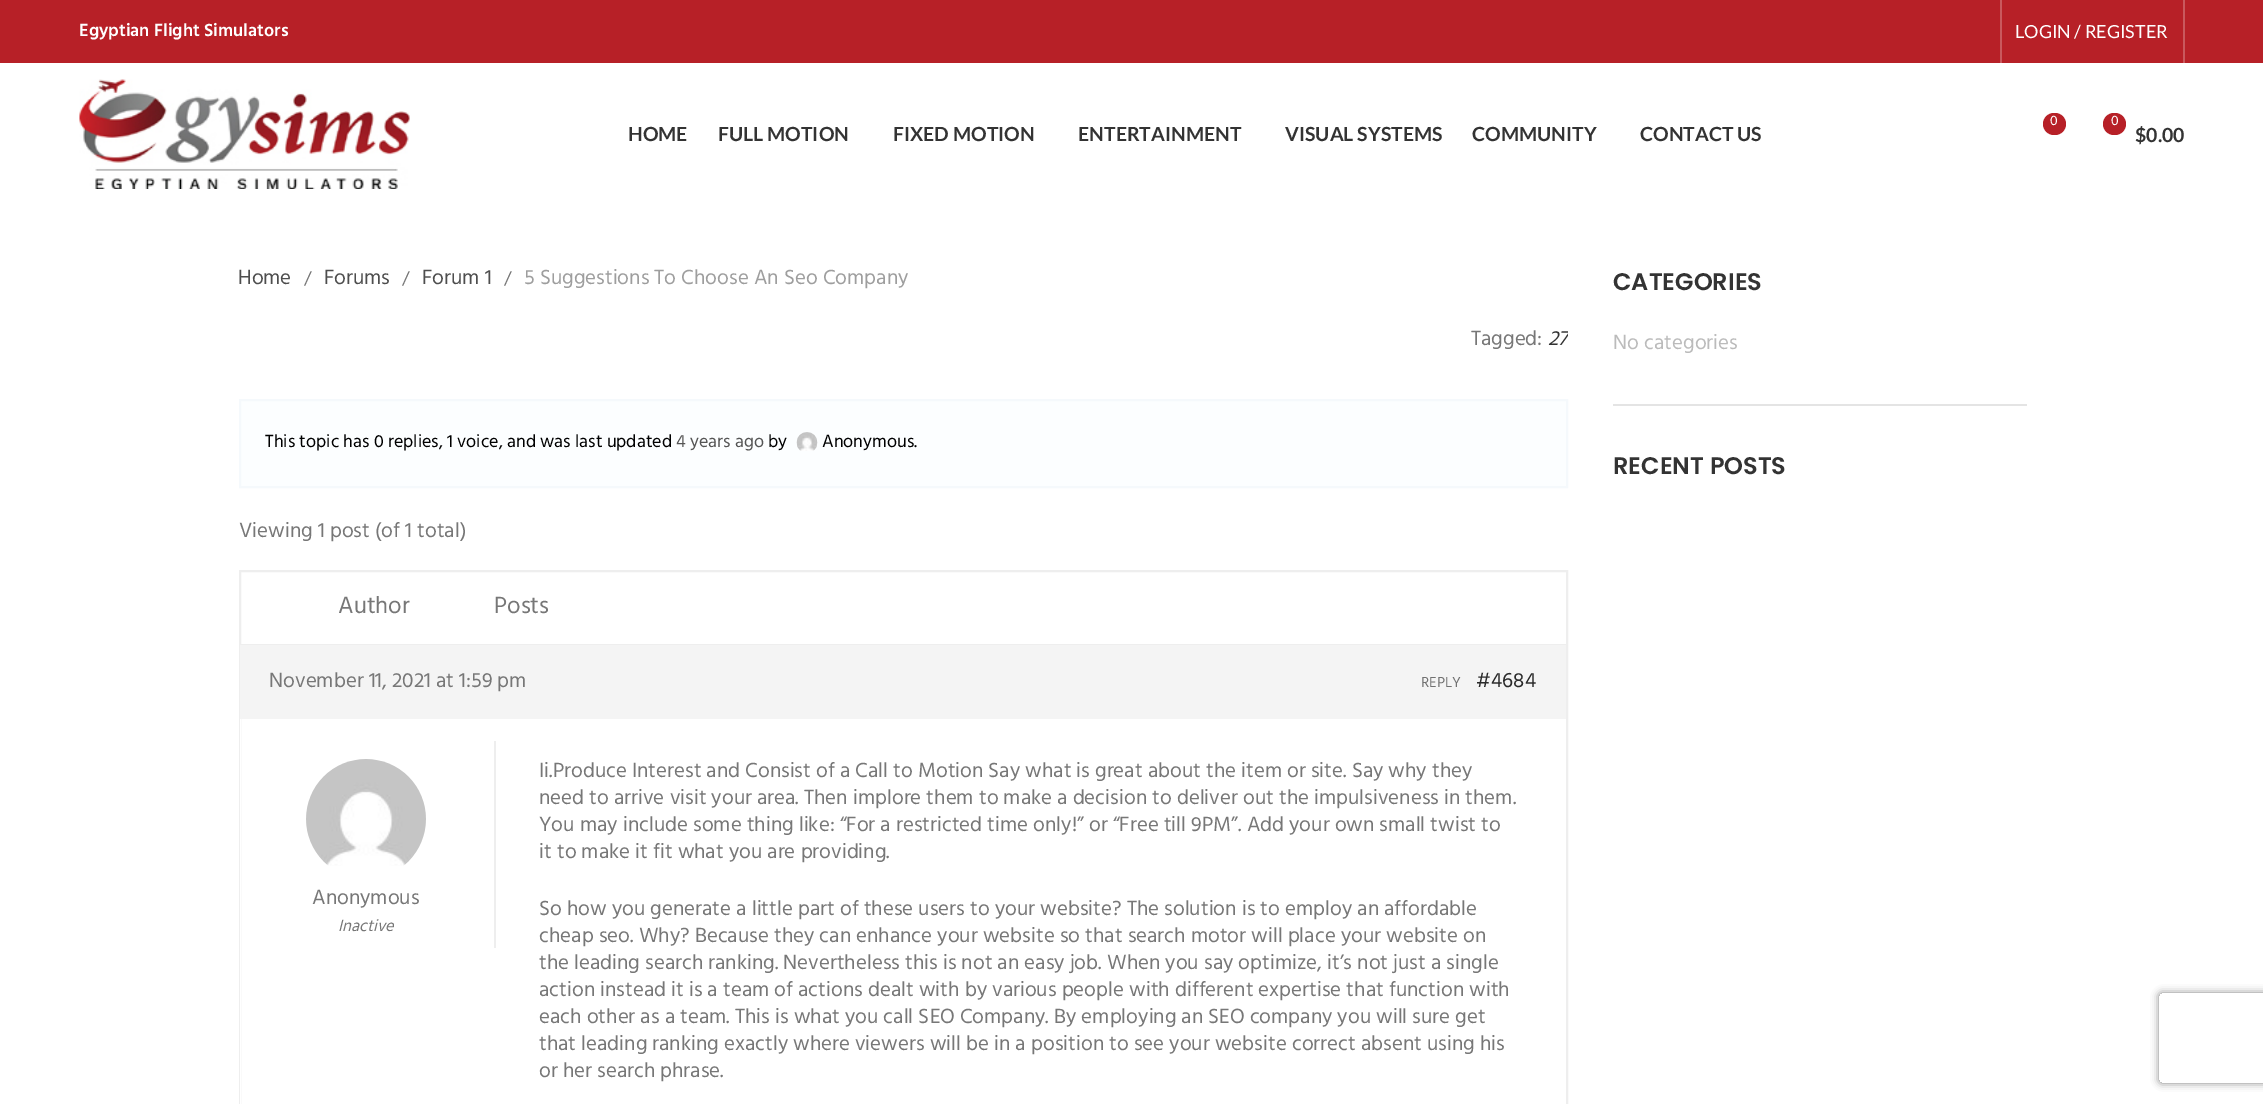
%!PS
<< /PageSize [2263 1104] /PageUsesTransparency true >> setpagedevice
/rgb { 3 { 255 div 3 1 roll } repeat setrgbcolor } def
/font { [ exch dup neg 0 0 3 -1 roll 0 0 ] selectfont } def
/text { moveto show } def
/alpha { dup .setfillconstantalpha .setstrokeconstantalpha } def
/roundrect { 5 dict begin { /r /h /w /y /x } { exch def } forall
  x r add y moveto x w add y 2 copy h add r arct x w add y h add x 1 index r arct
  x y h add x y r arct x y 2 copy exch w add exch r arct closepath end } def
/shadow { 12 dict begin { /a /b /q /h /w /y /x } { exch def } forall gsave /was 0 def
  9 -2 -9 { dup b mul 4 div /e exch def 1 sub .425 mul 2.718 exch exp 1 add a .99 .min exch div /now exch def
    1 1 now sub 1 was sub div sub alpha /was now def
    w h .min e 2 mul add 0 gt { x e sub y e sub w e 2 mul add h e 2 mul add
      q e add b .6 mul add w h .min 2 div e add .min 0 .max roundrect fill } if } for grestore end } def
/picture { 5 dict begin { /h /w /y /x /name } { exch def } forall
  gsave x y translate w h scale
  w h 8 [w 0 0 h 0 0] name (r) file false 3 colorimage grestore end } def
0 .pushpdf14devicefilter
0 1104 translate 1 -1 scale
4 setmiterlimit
255 255 255 rgb
0 0 2263 1104 rectfill
183 32 39 rgb
0 0 2263 63 rectfill
201 88 93 rgb
2000 0 2 63 rectfill
2183 0 2 63 rectfill
(img_01.rgb) 79 79 331 110 picture
183 32 39 rgb
2043 113 23 22 11 roundrect fill
2103 113 23 22 11 roundrect fill
252 254 255 rgb
240 400 moveto 1327 0 rlineto 0 87 rlineto -1327 0 rlineto closepath gsave fill grestore
245 249 252 rgb
2 setlinewidth
stroke
(img_02.rgb) 796 432 22 19 picture
238 238 238 rgb
240 571 1327 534 rectstroke
240 644 1326 1 rectfill
244 244 244 rgb
240 645 1326 74 rectfill
255 255 255 rgb
240 719 1 385 rectfill
238 238 238 rgb
494 741 2 207 rectfill
(img_03.rgb) 306 759 120 107 picture
228 228 228 rgb
1613 404 414 2 rectfill
gsave
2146 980 moveto 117 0 rlineto 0 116 rlineto -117 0 rlineto closepath 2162 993 moveto 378 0 rlineto 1.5 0 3 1.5 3 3 rcurveto 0 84 rlineto 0 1.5 -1.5 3 -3 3 rcurveto -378 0 rlineto -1.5 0 -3 -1.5 -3 -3 rcurveto 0 -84 rlineto 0 -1.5 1.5 -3 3 -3 rcurveto closepath eoclip newpath
128 128 128 rgb
2159 993 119 90 3 4 1 shadow
grestore
/Hind-SemiBold 18 font
255 255 255 rgb
(Egyptian Flight Simulators) 79 36 text
/Lato-Regular 18 font
(LOGIN / REGISTER) 2015 38 text
/Lato-Bold 19.5 font
51 51 51 rgb
(HOME) 628 141 text
(FULL MOTION) 718 141 text
(FIXED MOTION) 893 141 text
(ENTERTAINMENT) 1078 141 text
(VISUAL SYSTEMS) 1285 141 text
(COMMUNITY) 1472 141 text
(CONTACT US) 1640 141 text
/Hind-Regular 14 font
255 255 255 rgb
(0) 2050 125 text
(0) 2111 125 text
/Lato-Bold 19.5 font
51 51 51 rgb
($0.00) 2135 142 text
/Hind-Regular 21 font
78 78 78 rgb
(Home) 238 284 text
/Hind-Regular 18 font
119 119 119 rgb
(/) 304 284 text
/Hind-Regular 21 font
78 78 78 rgb
(Forums) 324 284 text
/Hind-Regular 18 font
119 119 119 rgb
(/) 402 284 text
/Hind-Regular 21 font
78 78 78 rgb
(Forum 1) 422 284 text
/Hind-Regular 18 font
119 119 119 rgb
(/) 504 284 text
/Hind-Regular 21 font
158 158 158 rgb
(5 Suggestions To Choose An Seo Company) 524 284 text
119 119 119 rgb
(Tagged:) 1471 345 text
gsave
239 266 1329 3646 rectclip
/Hind-Italic 21 font
51 51 51 rgb
(27) 1548 345 text
grestore
/Hind-Regular 18 font
0 0 0 rgb
(This topic has 0 replies, 1 voice, and was last updated) 265 447 text
85 85 85 rgb
(4 years ago) 676 447 text
0 0 0 rgb
(by) 768 447 text
(Anonymous.) 822 447 text
/Hind-Regular 21 font
119 119 119 rgb
(Viewing 1 post \(of 1 total\)) 239 537 text
/Hind-Regular 24 font
(Author) 338 613 text
(Posts) 494 613 text
/Hind-Regular 21 font
(November 11, 2021 at 1:59 pm) 269 687 text
/Hind-Regular 15 font
113 113 113 rgb
(REPLY) 1421 687 text
/Hind-Regular 21 font
42 42 42 rgb
(#4684) 1476 687 text
119 119 119 rgb
(Anonymous) 312 904 text
/Hind-Italic 16.5 font
(Inactive) 338 931 text
/Hind-Regular 21 font
(Ii.Produce Interest and Consist of a Call to Motion Say what is great about the item or site. Say why they) 539 777 text
(need to arrive visit your area. Then implore them to make a decision to deliver out the impulsiveness in them.) 539 804 text
(You may include some thing like: “For a restricted time only!” or “Free till 9PM”. Add your own small twist to) 539 831 text
(it to make it fit what you are providing.) 539 858 text
(So how you generate a little part of these users to your website? The solution is to employ an affordable) 539 915 text
(cheap seo. Why? Because they can enhance your website so that search motor will place your website on) 539 942 text
(the leading search ranking. Nevertheless this is not an easy job. When you say optimize, it’s not just a single) 539 969 text
(action instead it is a team of actions dealt with by various people with different expertise that function with) 539 996 text
(each other as a team. This is what you call SEO Company. By employing an SEO company you will sure get) 539 1023 text
(that leading ranking exactly where viewers will be in a position to see your website correct absent using his) 539 1050 text
(or her search phrase.) 539 1077 text
/Poppins-SemiBold 24 font
51 51 51 rgb
(CATEGORIES) 1613 290 text
/Hind-Regular 21 font
187 187 187 rgb
(No categories) 1613 349 text
/Poppins-SemiBold 24 font
51 51 51 rgb
(RECENT POSTS) 1613 474 text
.poppdf14devicefilter showpage
